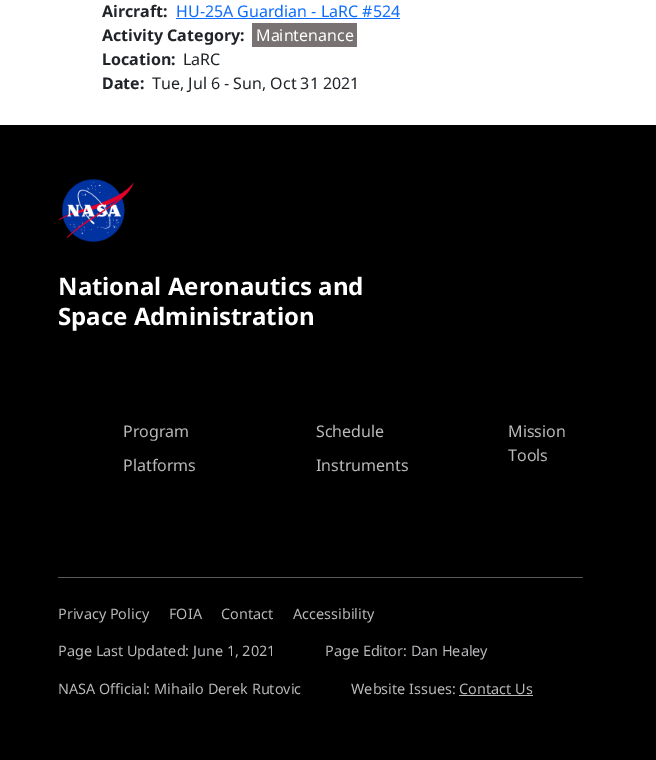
%!PS
<< /PageSize [656 760] >> setpagedevice
/rgb { 3 { 255 div 3 1 roll } repeat setrgbcolor } def
/font { [ exch dup neg 0 0 3 -1 roll 0 0 ] selectfont } def
/text { moveto show } def
/picture { 5 dict begin { /h /w /y /x /name } { exch def } forall
  gsave x y translate w h scale
  w h 8 [w 0 0 h 0 0] name (r) file false 3 colorimage grestore end } def
0 760 translate 1 -1 scale
4 setmiterlimit
255 255 255 rgb
0 0 656 760 rectfill
13 110 253 rgb
176 18 224 1 rectfill
121 114 114 rgb
252 23 105 24 rectfill
0 0 0 rgb
0 125 656 635 rectfill
(img_01.rgb) 58 179 76 63 picture
88 88 91 rgb
58 577 525 1 rectfill
185 185 187 rgb
459 695 74 1 rectfill
/NotoSans-Bold 16 font
33 37 41 rgb
(Aircraft:) 102 17 text
/NotoSans-Regular 16 font
13 110 253 rgb
(HU-25A Guardian - LaRC #524) 176 17 text
/NotoSans-Bold 16 font
33 37 41 rgb
(Activity Category:) 102 41 text
/NotoSans-Regular 16 font
255 255 255 rgb
(Maintenance) 256 41 text
/NotoSans-Bold 16 font
33 37 41 rgb
(Location:) 102 65 text
/NotoSans-Regular 16 font
(LaRC) 183 65 text
/NotoSans-Bold 16 font
(Date:) 102 89 text
/NotoSans-Regular 16 font
(Tue, Jul 6 - Sun, Oct 31 2021) 152 89 text
/NotoSans-Bold 24 font
255 255 255 rgb
(National Aeronautics and) 58 295 text
(Space Administration) 58 325 text
/NotoSans-Regular 16 font
185 185 187 rgb
(Program) 123 437 text
(Schedule) 316 437 text
(Mission) 508 437 text
(Tools) 508 461 text
(Platforms) 123 471 text
(Instruments) 316 471 text
/NotoSans-Regular 14.4 font
(Privacy Policy) 58 619 text
(FOIA) 169 619 text
(Contact) 221 619 text
(Accessibility) 293 619 text
(Page Last Updated: June 1, 2021) 58 656 text
(Page Editor: Dan Healey) 325 656 text
(NASA Official: Mihailo Derek Rutovic) 58 694 text
(Website Issues: Contact Us) 351 694 text
showpage
